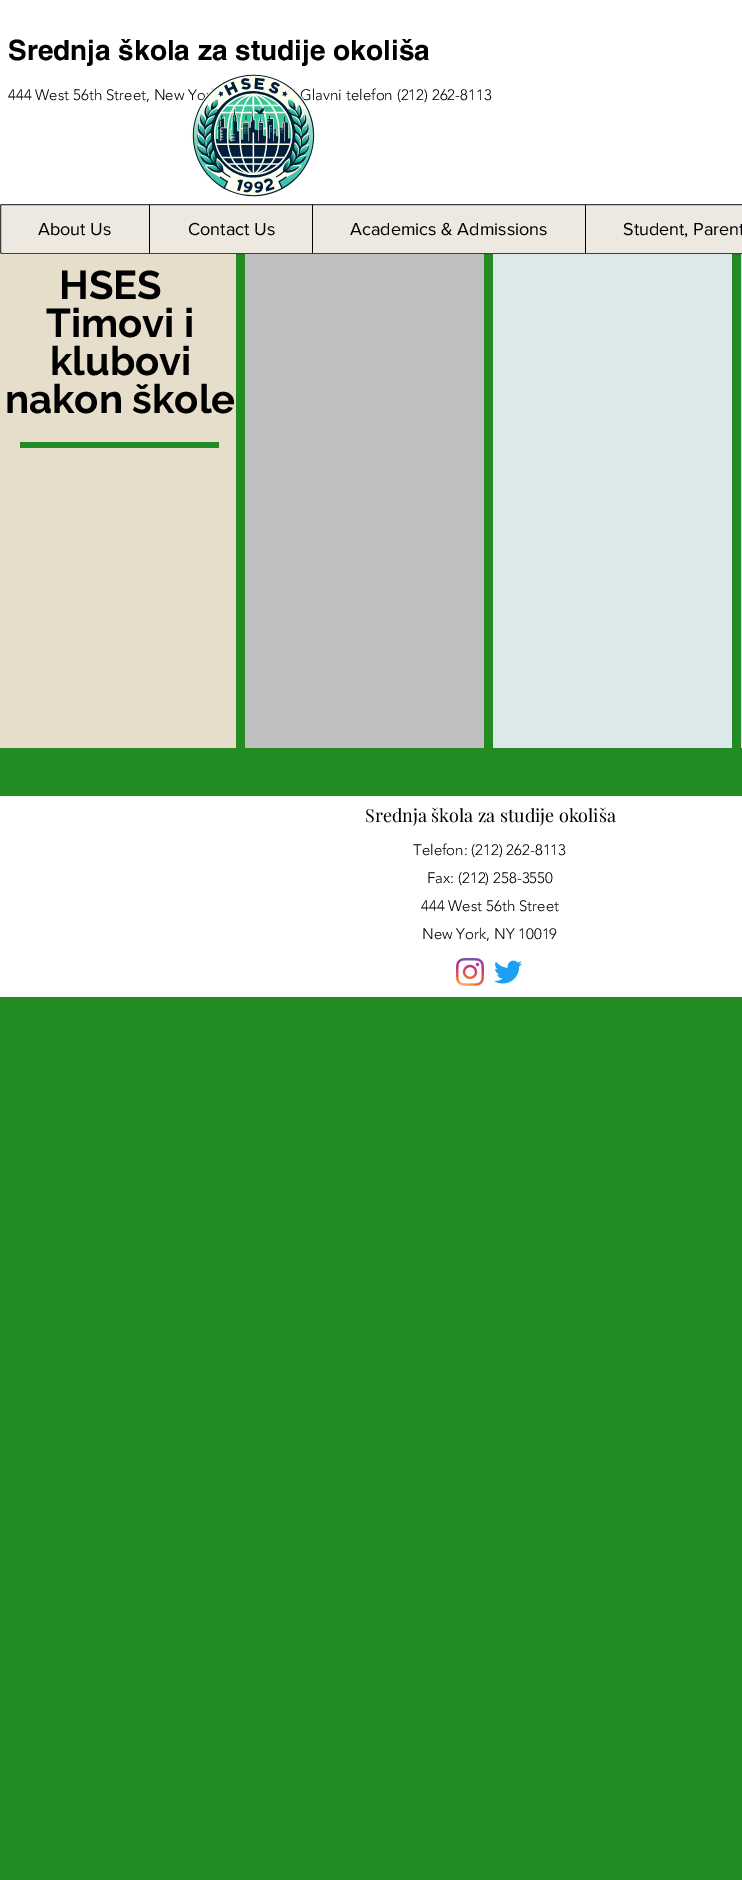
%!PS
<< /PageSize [742 1880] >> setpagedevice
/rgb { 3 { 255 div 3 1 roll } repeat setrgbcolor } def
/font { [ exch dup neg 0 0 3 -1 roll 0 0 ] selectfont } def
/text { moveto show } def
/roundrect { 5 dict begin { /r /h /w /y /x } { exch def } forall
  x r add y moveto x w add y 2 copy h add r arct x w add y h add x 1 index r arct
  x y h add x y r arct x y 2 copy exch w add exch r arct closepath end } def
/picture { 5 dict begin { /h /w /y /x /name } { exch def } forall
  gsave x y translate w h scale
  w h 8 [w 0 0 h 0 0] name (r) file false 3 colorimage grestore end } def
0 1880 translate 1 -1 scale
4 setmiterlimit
34 139 34 rgb
0 0 742 1880 rectfill
255 255 255 rgb
0 0 742 254 rectfill
237 233 225 rgb
0.5 204.5 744 49 1.5 roundrect gsave fill grestore
64 64 64 rgb
stroke
0 0 0 rgb
149 205 1 48 rectfill
312 205 1 48 rectfill
585 205 1 48 rectfill
230 222 202 rgb
0 254 236 494 rectfill
34 139 34 rgb
20 442 199 6 rectfill
191 191 191 rgb
245 254 239 494 rectfill
221 232 235 rgb
493 254 239 494 rectfill
230 222 202 rgb
741 254 1 494 rectfill
255 255 255 rgb
0 796 742 201 rectfill
(img_02.rgb) 456 958 28 28 picture
(img_03.rgb) 494 960 28 24 picture
/helvetica-Bold 28 font
0 0 0 rgb
(Srednja škola za studije okoliša) 8 60 text
/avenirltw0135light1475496-Light 15 font
(444 West 56th Street, New Yo) 8 100 text
(Glavni telefon \(212\) 262-8113) 300 100 text
(img_01.rgb) 191 73 125 125 picture
/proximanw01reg-Regular 18 font
(About Us) 38 235 text
(Contact Us) 188 235 text
(Academics & Admissions) 350 235 text
(Student, Parent) 623 235 text
/Raleway-Bold 40 font
(HSES) 59 299 text
(Timovi i) 46 337 text
(klubovi) 50 375 text
(nakon škole) 5 413 text
/PlayfairDisplay-Regular 18 font
(Srednja škola za studije okoliša) 365 822 text
/avenirltw0135light1475496-Light 15 font
(Telefon: \(212\) 262-8113) 413 855 text
(Fax: \(212\) 258-3550) 427 883 text
(444 West 56th Street) 421 911 text
(New York, NY 10019) 422 939 text
showpage
